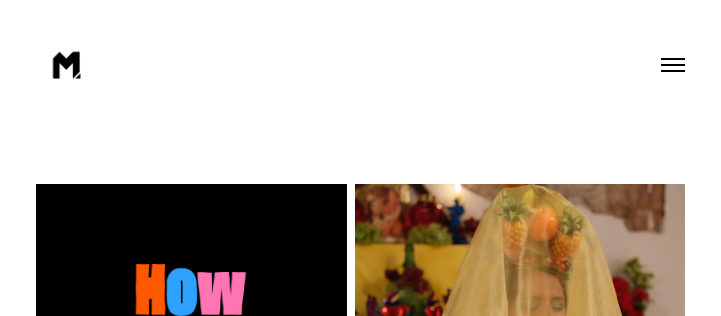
%!PS
<< /PageSize [721 316] >> setpagedevice
/rgb { 3 { 255 div 3 1 roll } repeat setrgbcolor } def
/picture { 5 dict begin { /h /w /y /x /name } { exch def } forall
  gsave x y translate w h scale
  w h 8 [w 0 0 h 0 0] name (r) file false 3 colorimage grestore end } def
0 316 translate 1 -1 scale
4 setmiterlimit
255 255 255 rgb
0 0 721 316 rectfill
(img_01.rgb) 52 51 29 28 picture
0 0 0 rgb
661 58 24 2 rectfill
661 64 24 2 rectfill
661 70 24 2 rectfill
(img_02.rgb) 36 184 311 132 picture
(img_03.rgb) 355 184 330 132 picture
showpage
